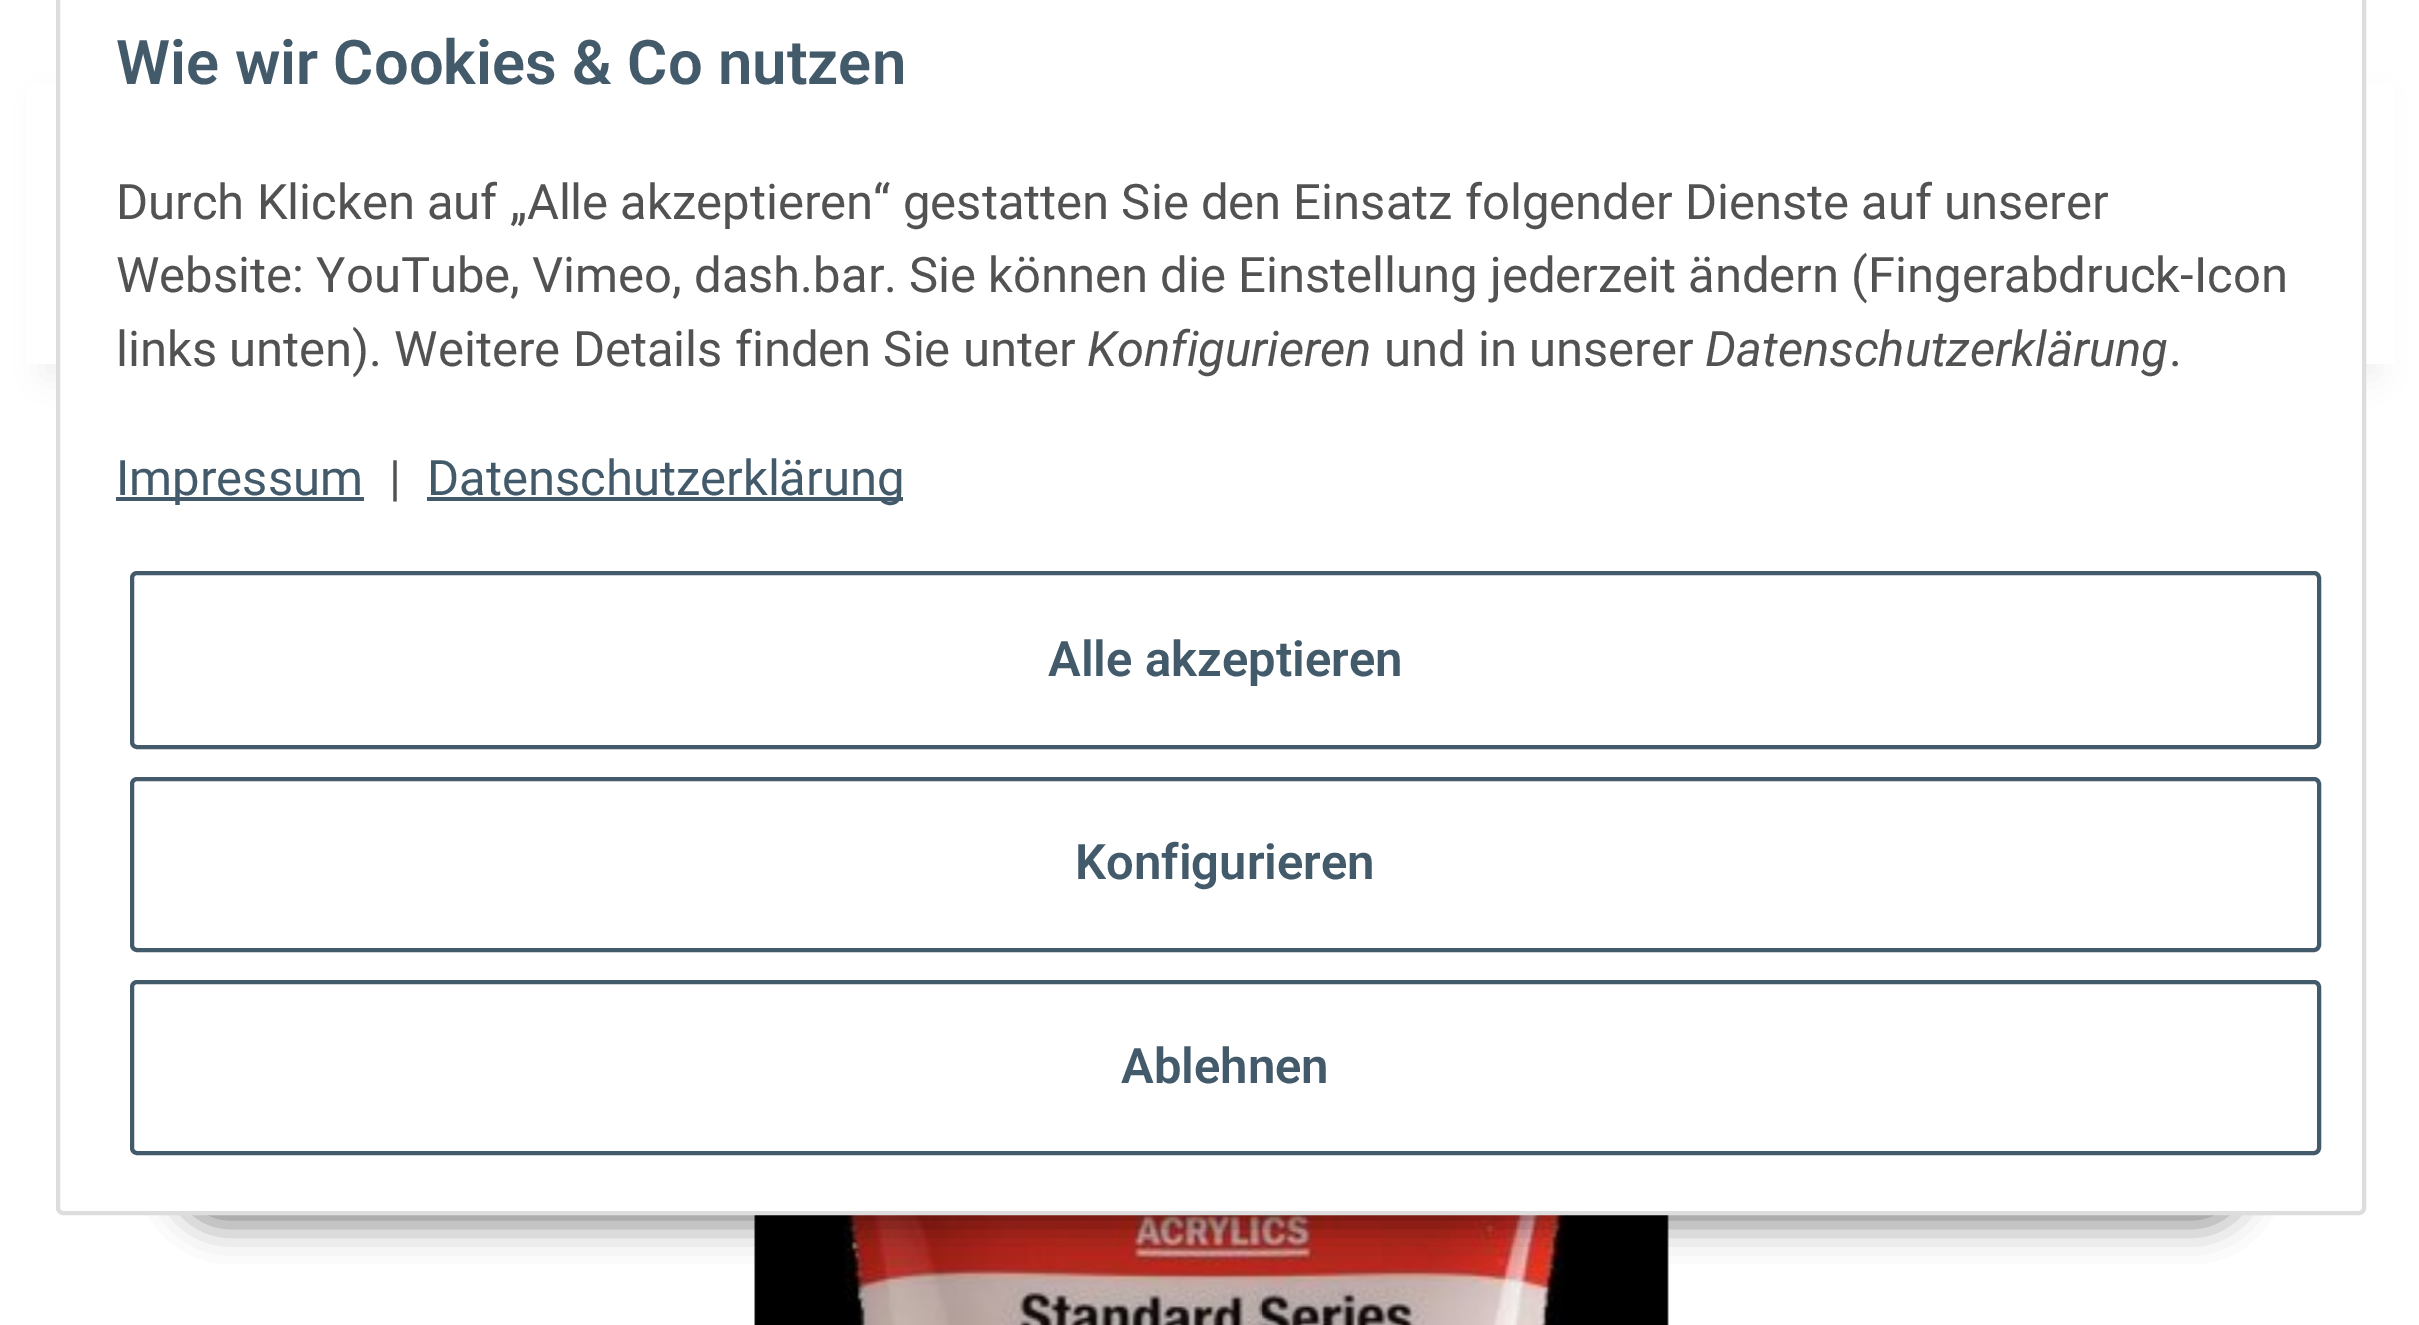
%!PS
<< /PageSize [2419 1325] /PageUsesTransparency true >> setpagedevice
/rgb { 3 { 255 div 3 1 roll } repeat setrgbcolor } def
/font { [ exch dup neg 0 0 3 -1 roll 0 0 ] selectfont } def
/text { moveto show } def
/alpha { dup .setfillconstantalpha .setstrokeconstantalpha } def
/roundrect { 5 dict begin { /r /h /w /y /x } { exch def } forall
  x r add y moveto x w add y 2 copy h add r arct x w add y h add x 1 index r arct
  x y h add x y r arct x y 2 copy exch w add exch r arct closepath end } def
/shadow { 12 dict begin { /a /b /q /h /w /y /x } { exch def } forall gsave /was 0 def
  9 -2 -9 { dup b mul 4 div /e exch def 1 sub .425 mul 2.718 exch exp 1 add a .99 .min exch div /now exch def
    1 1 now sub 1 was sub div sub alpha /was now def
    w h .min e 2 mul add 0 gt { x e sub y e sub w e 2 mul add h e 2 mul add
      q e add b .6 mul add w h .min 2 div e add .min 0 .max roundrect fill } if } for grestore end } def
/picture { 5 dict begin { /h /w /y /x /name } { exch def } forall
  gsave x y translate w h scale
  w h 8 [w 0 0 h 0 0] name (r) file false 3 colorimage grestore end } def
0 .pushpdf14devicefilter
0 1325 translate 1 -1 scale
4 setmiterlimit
255 255 255 rgb
0 0 2419 1325 rectfill
(img_01.rgb) 754 1215 915 110 picture
0 0 0 rgb
175 1113 2072 112 56 17.5 0.45 shadow
42 98 2338 280 0 16 0.06 shadow
255 255 255 rgb
27 83 2368 281 rectfill
58 -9 2306 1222 5 roundrect gsave fill grestore
221 221 221 rgb
4 setlinewidth
stroke
67 90 107 rgb
116 497 248 4 rectfill
427 497 476 4 rectfill
132 573 2187 174 5 roundrect stroke
132 779 2187 171 5 roundrect stroke
132 982 2187 171 5 roundrect stroke
/Roboto-SemiBold 61.6 font
(Wie wir Cookies & Co nutzen) 116 84 text
/Roboto-Regular 49 font
82 82 82 rgb
(Durch Klicken auf „Alle akzeptieren“ gestatten Sie den Einsatz folgender Dienste auf unserer) 116 219 text
(Website: YouTube, Vimeo, dash.bar. Sie können die Einstellung jederzeit ändern \(Fingerabdruck-Icon) 116 292 text
(links unten\). Weitere Details finden Sie unter) 116 366 text
/Roboto-Italic 49 font
(Konfigurieren) 1087 366 text
/Roboto-Regular 49 font
(und in unserer) 1384 366 text
/Roboto-Italic 49 font
(Datenschutzerklärung) 1705 366 text
/Roboto-Regular 49 font
(.) 2169 366 text
67 90 107 rgb
(Impressum) 116 495 text
82 82 82 rgb
(|) 389 495 text
67 90 107 rgb
(Datenschutzerklärung) 427 495 text
/Roboto-SemiBold 49 font
(Alle akzeptieren) 1048 676 text
(Konfigurieren) 1075 879 text
(Ablehnen) 1121 1083 text
.poppdf14devicefilter showpage
